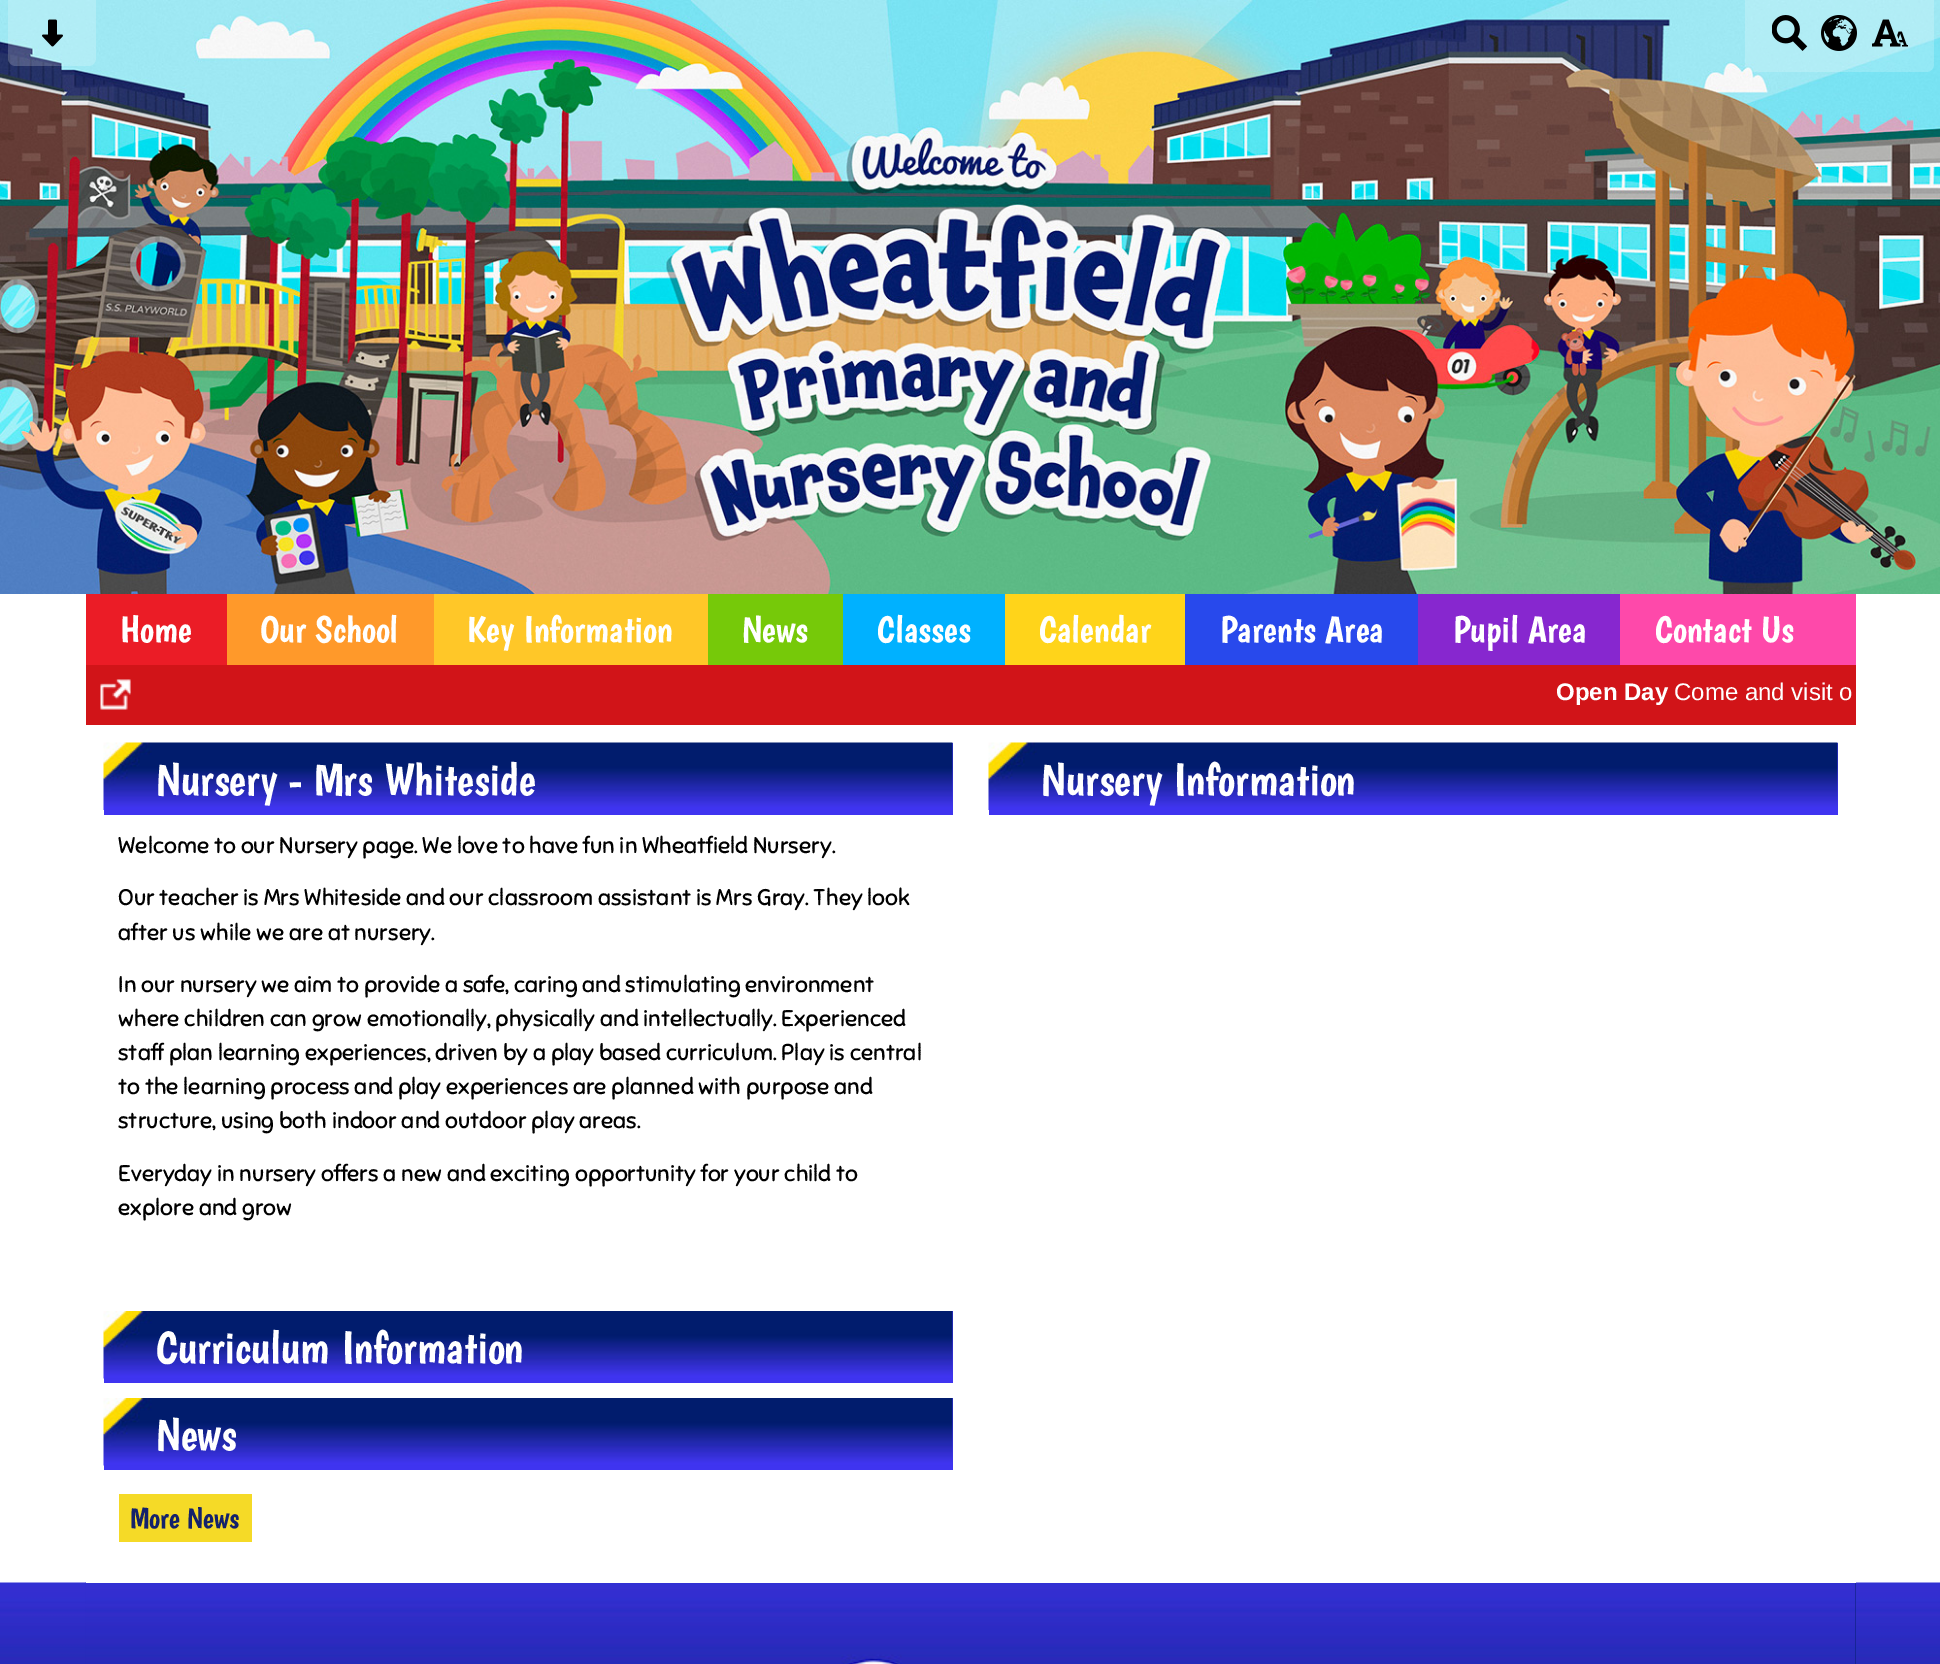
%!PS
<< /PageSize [1940 1664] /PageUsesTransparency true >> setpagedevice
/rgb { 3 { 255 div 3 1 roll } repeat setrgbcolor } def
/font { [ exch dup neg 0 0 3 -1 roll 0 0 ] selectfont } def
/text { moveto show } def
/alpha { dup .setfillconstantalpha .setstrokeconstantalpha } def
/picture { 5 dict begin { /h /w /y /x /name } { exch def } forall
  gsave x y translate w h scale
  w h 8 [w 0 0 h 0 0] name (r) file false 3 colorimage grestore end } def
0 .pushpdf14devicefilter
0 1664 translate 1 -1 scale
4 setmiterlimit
255 255 255 rgb
0 0 1940 1664 rectfill
(img_01.rgb) 0 0 1940 594 picture
0.2 alpha
8 0 moveto 88 0 rlineto 0 58 rlineto 0 4.5 -3.5 8 -8 8 rcurveto -72 0 rlineto -4.5 0 -8 -3.5 -8 -8 rcurveto closepath fill
1 alpha
(img_02.rgb) 42 19 21 28 picture
0.2 alpha
1745 0 moveto 189 0 rlineto 0 64 rlineto 0 4.5 -3.5 8 -8 8 rcurveto -173 0 rlineto -4.5 0 -8 -3.5 -8 -8 rcurveto closepath fill
1 alpha
(img_03.rgb) 1772 15 36 36 picture
(img_04.rgb) 1821 15 36 36 picture
(img_05.rgb) 1872 19 36 28 picture
254 73 170 rgb
1620 594 236 71 rectfill
235 28 38 rgb
86 594 141 71 rectfill
255 153 42 rgb
227 594 207 71 rectfill
255 199 40 rgb
434 594 274 71 rectfill
118 201 9 rgb
708 594 135 71 rectfill
0 177 255 rgb
843 594 162 71 rectfill
255 212 26 rgb
1005 594 180 71 rectfill
40 73 236 rgb
1185 594 233 71 rectfill
135 39 207 rgb
1418 594 202 71 rectfill
209 20 24 rgb
86 665 1770 60 rectfill
(img_06.rgb) 100 679 31 31 picture
(img_09.rgb) 0 1582 1940 82 picture
4 29 109 rgb
1855 1583 1 81 rectfill
(img_10.rgb) 85 1582 1771 82 picture
255 255 255 rgb
86 1582 1770 1 rectfill
63 52 240 rgb
104 743 849 72 rectfill
(img_07.rgb) 103 742 850 68 picture
104 1311 849 72 rectfill
(img_08.rgb) 103 1311 850 68 picture
104 1398 849 72 rectfill
(img_08.rgb) 103 1398 850 68 picture
245 218 39 rgb
119 1494 133 48 rectfill
63 52 240 rgb
989 743 849 72 rectfill
(img_07.rgb) 988 742 850 68 picture
/Boogaloo-Regular 37.25 font
255 255 255 rgb
(Home) 120 642 text
(Our School) 260 642 text
(Key Information) 467 642 text
(News) 742 642 text
(Classes) 877 642 text
(Calendar) 1039 642 text
(Parents Area) 1220 642 text
(Pupil Area) 1453 642 text
(Contact Us) 1655 642 text
/LiberationSans-Bold 24 font
(Open Day) 1556 700 text
/LiberationSans-Regular 24 font
(Come and visit o) 1674 700 text
/Boogaloo-Regular 45.5 font
(Nursery - Mrs Whiteside) 156 795 text
/Sniglet-Regular 22.8 font
0 0 0 rgb
(Welcome to our Nursery page. We love to have fun in Wheatfield Nursery.) 118 853 text
(Our teacher is Mrs Whiteside and our classroom assistant is Mrs Gray. They look) 118 905 text
(after us while we are at nursery.) 118 940 text
(In our nursery we aim to provide a safe, caring and stimulating environment) 118 992 text
(where children can grow emotionally, physically and intellectually. Experienced) 118 1026 text
(staff plan learning experiences, driven by a play based curriculum. Play is central) 118 1060 text
(to the learning process and play experiences are planned with purpose and) 118 1094 text
(structure, using both indoor and outdoor play areas.) 118 1128 text
(Everyday in nursery offers a new and exciting opportunity for your child to) 118 1181 text
(explore and grow) 118 1215 text
/Boogaloo-Regular 45.5 font
255 255 255 rgb
(Curriculum Information) 156 1363 text
(News) 156 1450 text
/Boogaloo-Regular 29.5 font
20 34 107 rgb
(More News) 130 1528 text
/Boogaloo-Regular 45.5 font
255 255 255 rgb
(Nursery Information) 1041 795 text
.poppdf14devicefilter showpage
